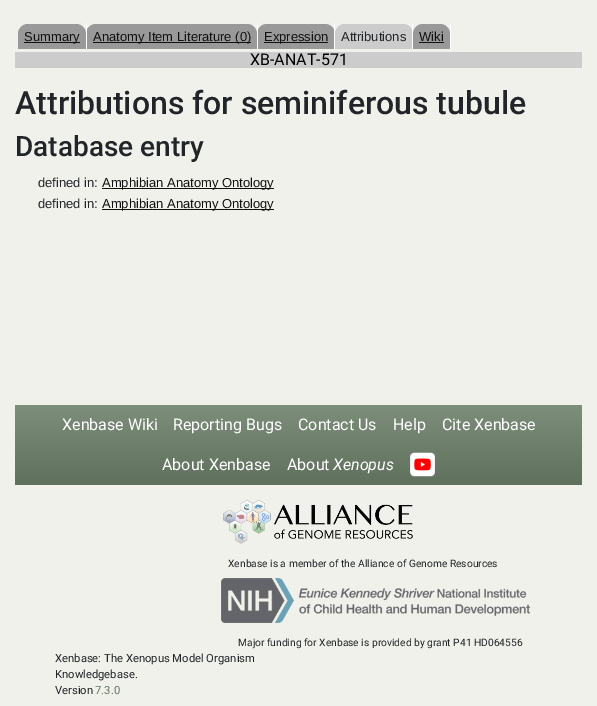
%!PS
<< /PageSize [597 706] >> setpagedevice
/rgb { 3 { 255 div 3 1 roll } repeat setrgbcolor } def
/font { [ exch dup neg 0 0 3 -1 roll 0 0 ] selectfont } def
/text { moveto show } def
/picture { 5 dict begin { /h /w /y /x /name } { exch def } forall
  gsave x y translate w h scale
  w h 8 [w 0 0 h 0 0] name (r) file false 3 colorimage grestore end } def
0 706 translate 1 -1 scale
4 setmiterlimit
240 241 234 rgb
0 0 597 706 rectfill
153 153 153 rgb
28 24 moveto 48 0 rlineto 5.5 0 10 4.5 10 10 rcurveto 0 15 rlineto -68 0 rlineto 0 -15 rlineto 0 -5.5 4.5 -10 10 -10 rcurveto closepath fill
96 24 moveto 151 0 rlineto 5.5 0 10 4.5 10 10 rcurveto 0 15 rlineto -171 0 rlineto 0 -15 rlineto 0 -5.5 4.5 -10 10 -10 rcurveto closepath fill
255 255 255 rgb
86 23 1 26 rectfill
17 17 17 rgb
24 42 56 1 rectfill
153 153 153 rgb
267 24 moveto 58 0 rlineto 5.5 0 10 4.5 10 10 rcurveto 0 15 rlineto -78 0 rlineto 0 -15 rlineto 0 -5.5 4.5 -10 10 -10 rcurveto closepath fill
255 255 255 rgb
257 23 1 26 rectfill
17 17 17 rgb
93 42 158 1 rectfill
255 255 255 rgb
334 23 1 26 rectfill
17 17 17 rgb
264 42 64 1 rectfill
204 204 204 rgb
345 24 moveto 58 0 rlineto 5.5 0 10 4.5 10 10 rcurveto 0 15 rlineto -78 0 rlineto 0 -15 rlineto 0 -5.5 4.5 -10 10 -10 rcurveto closepath fill
255 255 255 rgb
412 23 1 26 rectfill
153 153 153 rgb
423 24 moveto 17 0 rlineto 5.5 0 10 4.5 10 10 rcurveto 0 15 rlineto -37 0 rlineto 0 -15 rlineto 0 -5.5 4.5 -10 10 -10 rcurveto closepath fill
255 255 255 rgb
450 23 1 26 rectfill
17 17 17 rgb
419 42 25 1 rectfill
204 204 204 rgb
15 52 567 16 rectfill
17 17 17 rgb
102 188 172 1 rectfill
102 209 172 1 rectfill
gsave 15 405 moveto 567 0 rlineto 0 80 rlineto -567 0 rlineto closepath clip newpath
<< /ShadingType 2 /ColorSpace /DeviceRGB /Coords [299 405 299 485] /Extend [true true] /Function << /FunctionType 2 /Domain [0 1] /C0 [0.49 0.557 0.482] /C1 [0.373 0.439 0.365] /N 1 >> >> shfill grestore
(img_01.rgb) 410 452 25 25 picture
(img_02.rgb) 223 499 190 45 picture
(img_03.rgb) 221 578 309 45 picture
/LiberationSans-Regular 13 font
(Summary) 24 41 text
(Anatomy Item Literature \(0\)) 93 41 text
(Expression) 264 41 text
33 37 41 rgb
(Attributions) 341 41 text
17 17 17 rgb
(Wiki) 419 41 text
/Roboto-Regular 16 font
0 0 0 rgb
(XB-ANAT-571) 250 65 text
/Roboto-Medium 32 font
33 37 41 rgb
(Attributions for seminiferous tubule) 15 114 text
/Roboto-Medium 28 font
(Database entry) 15 156 text
/LiberationSans-Regular 13 font
(defined in:) 38 187 text
17 17 17 rgb
(Amphibian Anatomy Ontology) 102 187 text
33 37 41 rgb
(defined in:) 38 208 text
17 17 17 rgb
(Amphibian Anatomy Ontology) 102 208 text
/Roboto-Regular 16 font
255 255 255 rgb
(Xenbase Wiki) 62 430 text
(Reporting Bugs) 173 430 text
(Contact Us) 298 430 text
(Help) 393 430 text
(Cite Xenbase) 442 430 text
(About Xenbase) 162 470 text
(About) 287 470 text
/Roboto-Italic 16 font
(Xenopus) 333 470 text
/Roboto-Regular 10.25 font
33 37 41 rgb
(Xenbase is a member of the Alliance of Genome Resources) 228 567 text
(Major funding for Xenbase is provided by grant P41 HD064556) 238 646 text
/Roboto-Regular 11.25 font
(Xenbase: The Xenopus Model Organism) 55 662 text
(Knowledgebase.) 55 678 text
(Version) 55 694 text
100 117 98 rgb
(7.3.0) 95 694 text
showpage
